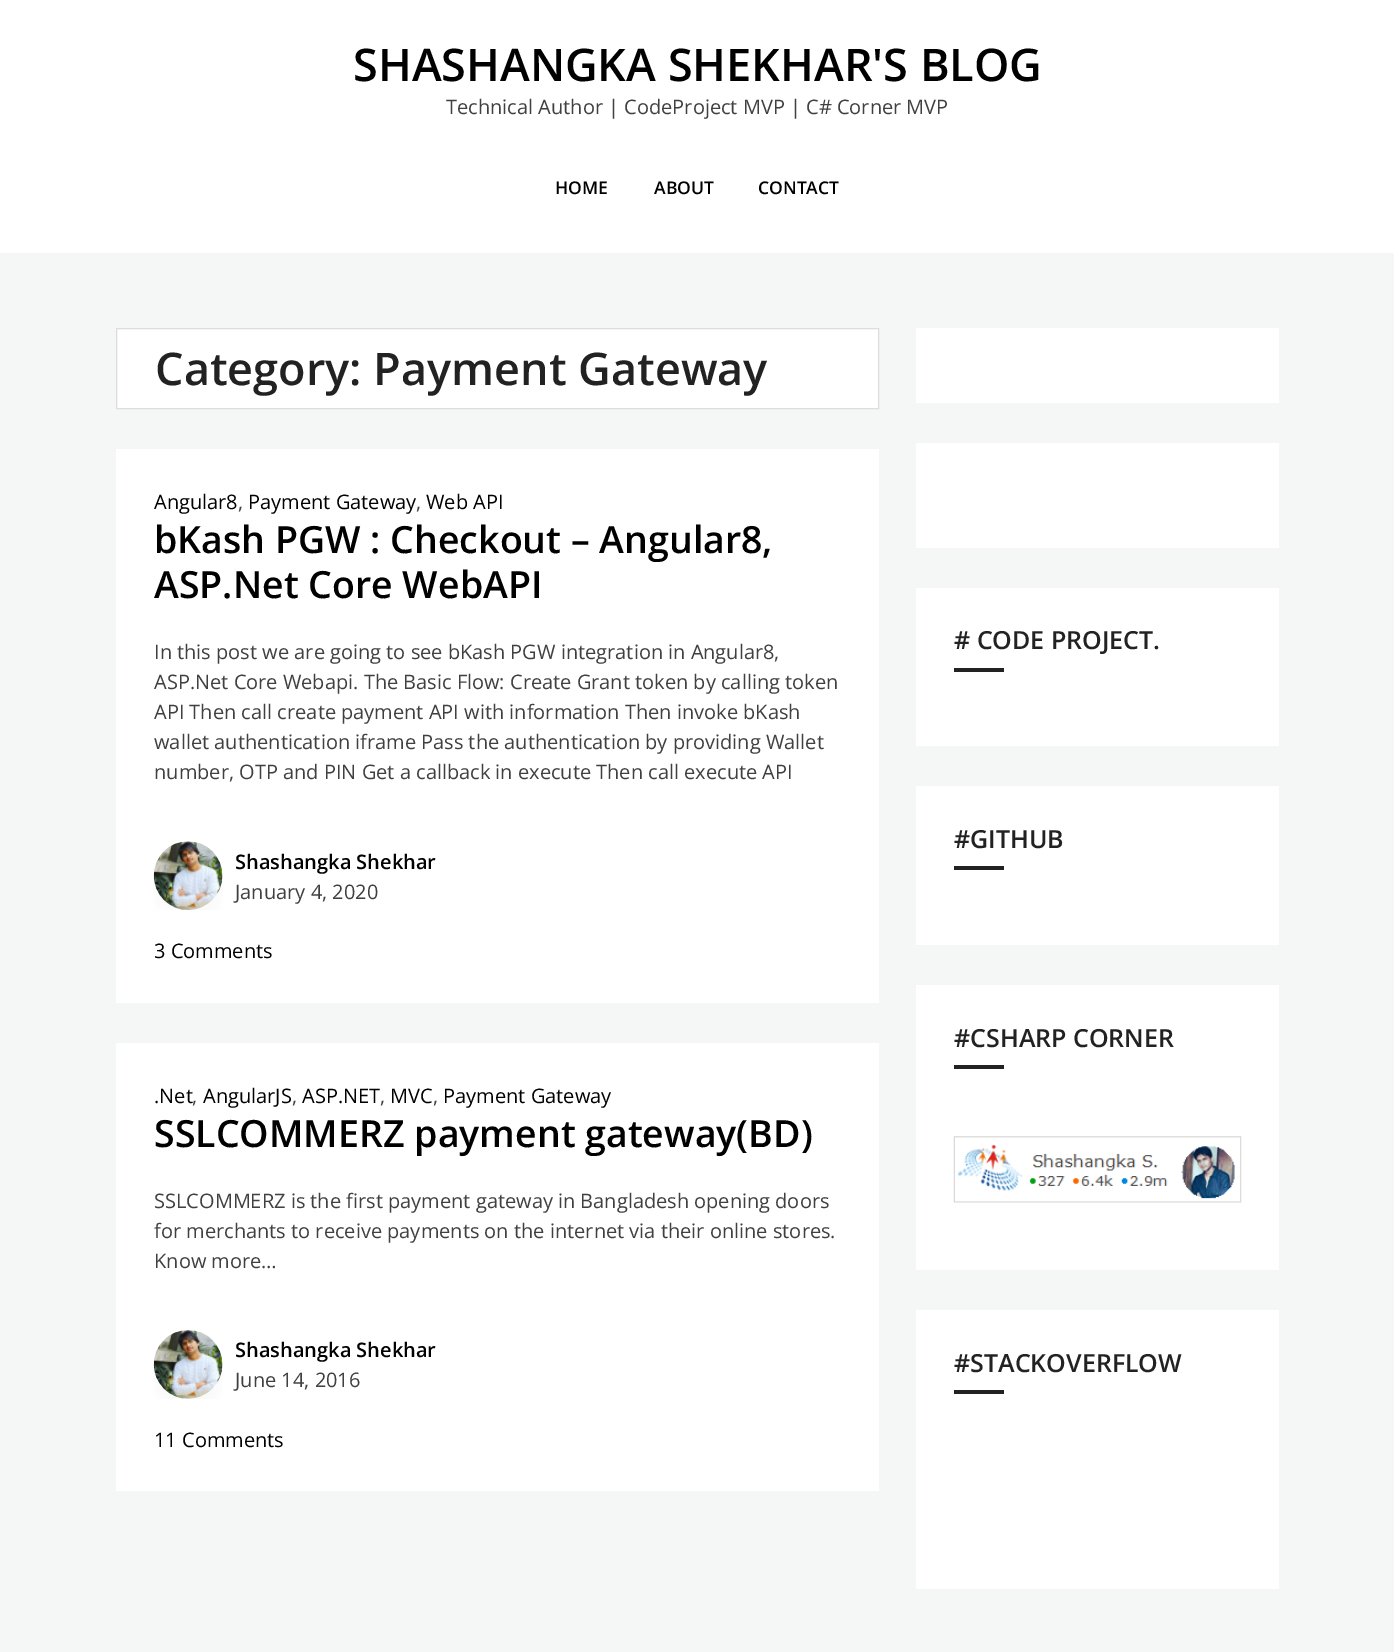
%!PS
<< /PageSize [1394 1652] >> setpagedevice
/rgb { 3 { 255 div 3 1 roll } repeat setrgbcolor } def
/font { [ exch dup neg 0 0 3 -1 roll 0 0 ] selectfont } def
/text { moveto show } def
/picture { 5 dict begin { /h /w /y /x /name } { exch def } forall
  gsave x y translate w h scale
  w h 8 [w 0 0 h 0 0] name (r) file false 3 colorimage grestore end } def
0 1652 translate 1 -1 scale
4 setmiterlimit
244 247 246 rgb
0 0 1394 1652 rectfill
255 255 255 rgb
0 0 1394 253 rectfill
116.5 328.5 moveto 762 0 rlineto 0 80 rlineto -762 0 rlineto closepath gsave fill grestore
221 221 221 rgb
stroke
255 255 255 rgb
116 449 763 554 rectfill
(img_01.rgb) 153 841 70 69 picture
116 1043 763 448 rectfill
(img_02.rgb) 153 1330 70 69 picture
916 328 363 75 rectfill
916 443 363 105 rectfill
916 588 363 158 rectfill
34 34 34 rgb
954 668 50 4 rectfill
255 255 255 rgb
916 786 363 159 rectfill
34 34 34 rgb
954 866 50 4 rectfill
255 255 255 rgb
916 985 363 285 rectfill
34 34 34 rgb
954 1065 50 4 rectfill
(img_03.rgb) 953 1136 289 67 picture
255 255 255 rgb
916 1310 363 279 rectfill
34 34 34 rgb
954 1390 50 4 rectfill
/OpenSans-SemiBold 45 font
0 0 0 rgb
(SHASHANGKA SHEKHAR'S BLOG) 353 81 text
/OpenSans-Regular 20 font
64 64 64 rgb
(Technical Author | CodeProject MVP | C# Corner MVP) 446 114 text
/OpenSans-SemiBold 17.5 font
0 0 0 rgb
(HOME) 555 194 text
(ABOUT) 654 194 text
(CONTACT) 758 194 text
/OpenSans-SemiBold 45 font
34 34 34 rgb
(Category: Payment Gateway) 155 385 text
/OpenSans-Regular 20 font
0 0 0 rgb
(Angular8) 154 509 text
64 64 64 rgb
(,) 238 509 text
0 0 0 rgb
(Payment Gateway) 248 509 text
64 64 64 rgb
(,) 416 509 text
0 0 0 rgb
(Web API) 426 509 text
/OpenSans-SemiBold 37.5 font
(bKash PGW : Checkout – Angular8,) 154 553 text
(ASP.Net Core WebAPI) 154 598 text
/OpenSans-Regular 20 font
64 64 64 rgb
(In this post we are going to see bKash PGW integration in Angular8,) 154 659 text
(ASP.Net Core Webapi. The Basic Flow: Create Grant token by calling token) 154 689 text
(API Then call create payment API with information Then invoke bKash) 154 719 text
(wallet authentication iframe Pass the authentication by providing Wallet) 154 749 text
(number, OTP and PIN Get a callback in execute Then call execute API) 154 779 text
/OpenSans-SemiBold 20 font
0 0 0 rgb
(Shashangka Shekhar) 235 869 text
/OpenSans-Regular 20 font
64 64 64 rgb
(January 4, 2020) 235 899 text
0 0 0 rgb
(3 Comments) 154 958 text
(.Net) 154 1103 text
64 64 64 rgb
(,) 192 1103 text
0 0 0 rgb
(AngularJS) 203 1103 text
64 64 64 rgb
(,) 292 1103 text
0 0 0 rgb
(ASP.NET) 302 1103 text
64 64 64 rgb
(,) 380 1103 text
0 0 0 rgb
(MVC) 390 1103 text
64 64 64 rgb
(,) 433 1103 text
0 0 0 rgb
(Payment Gateway) 443 1103 text
/OpenSans-SemiBold 37.5 font
(SSLCOMMERZ payment gateway\(BD\)) 154 1147 text
/OpenSans-Regular 20 font
64 64 64 rgb
(SSLCOMMERZ is the first payment gateway in Bangladesh opening doors) 154 1208 text
(for merchants to receive payments on the internet via their online stores.) 154 1238 text
(Know more…) 154 1268 text
/OpenSans-SemiBold 20 font
0 0 0 rgb
(Shashangka Shekhar) 235 1357 text
/OpenSans-Regular 20 font
64 64 64 rgb
(June 14, 2016) 235 1387 text
0 0 0 rgb
(11 Comments) 154 1447 text
/OpenSans-SemiBold 25 font
34 34 34 rgb
(# CODE PROJECT.) 954 649 text
(#GITHUB) 954 848 text
(#CSHARP CORNER) 954 1047 text
(#STACKOVERFLOW) 954 1372 text
showpage
